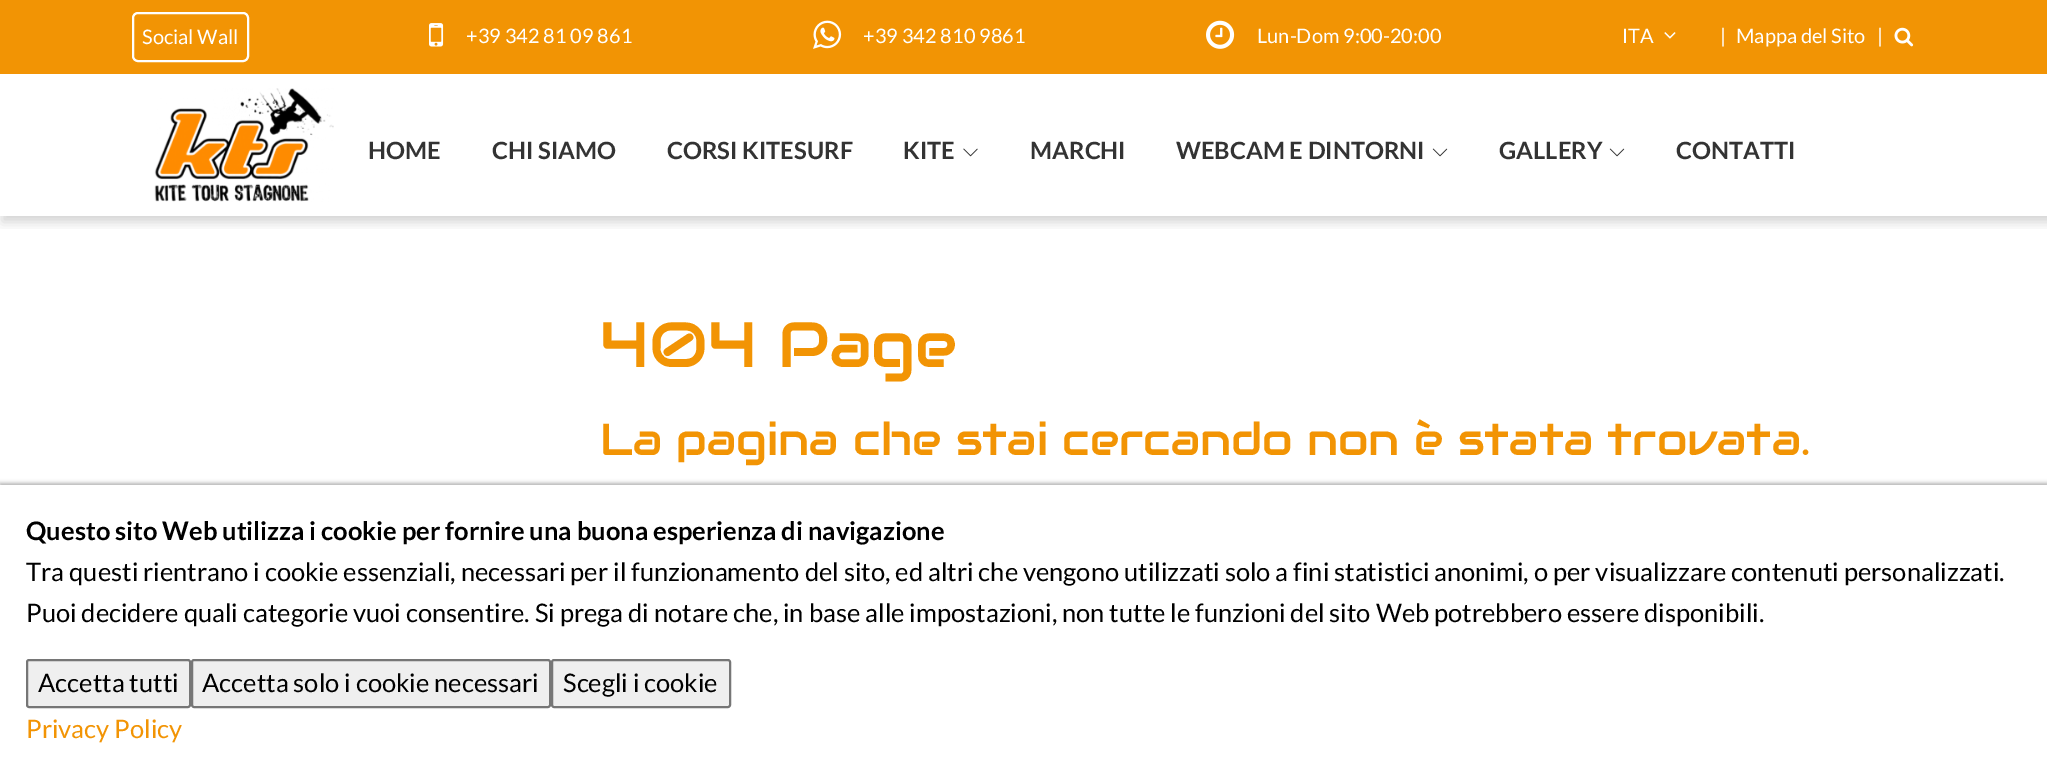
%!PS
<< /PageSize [2047 773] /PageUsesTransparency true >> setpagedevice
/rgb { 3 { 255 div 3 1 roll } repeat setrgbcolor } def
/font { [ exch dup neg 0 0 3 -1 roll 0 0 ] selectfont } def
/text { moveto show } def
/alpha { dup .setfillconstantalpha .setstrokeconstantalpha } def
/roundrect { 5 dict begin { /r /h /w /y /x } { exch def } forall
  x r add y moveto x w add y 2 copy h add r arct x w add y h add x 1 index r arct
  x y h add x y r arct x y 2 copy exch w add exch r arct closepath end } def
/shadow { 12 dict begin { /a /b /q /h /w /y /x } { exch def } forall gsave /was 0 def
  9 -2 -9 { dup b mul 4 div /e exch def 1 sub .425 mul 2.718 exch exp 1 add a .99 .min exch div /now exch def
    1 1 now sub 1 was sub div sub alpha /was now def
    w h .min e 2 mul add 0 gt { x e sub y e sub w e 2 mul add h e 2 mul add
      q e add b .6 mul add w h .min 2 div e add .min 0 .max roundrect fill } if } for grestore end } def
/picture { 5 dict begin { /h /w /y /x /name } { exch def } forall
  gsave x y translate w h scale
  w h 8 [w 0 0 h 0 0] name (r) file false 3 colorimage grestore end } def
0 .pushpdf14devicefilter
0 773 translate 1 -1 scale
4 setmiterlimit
255 255 255 rgb
0 0 2047 773 rectfill
gsave
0 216 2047 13 rectclip
0 0 0 rgb
2 74 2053 148 0 6 0.17 shadow
grestore
242 148 4 rgb
0 0 2047 74 rectfill
255 255 255 rgb
2 setlinewidth
133 13 115 48 5 roundrect stroke
(img_01.rgb) 429 23 15 24 picture
(img_02.rgb) 813 20 29 29 picture
(img_03.rgb) 1206 20 29 29 picture
(img_04.rgb) 1664 32 12 7 picture
(img_05.rgb) 1894 27 20 20 picture
(img_06.rgb) 154 88 180 114 picture
(img_07.rgb) 963 148 15 9 picture
(img_08.rgb) 1432 148 16 9 picture
(img_08.rgb) 1609 148 16 9 picture
0 0 0 rgb
0 483 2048 290 0 2 0.3 shadow
255 255 255 rgb
0 485 2047 288 rectfill
239 239 239 rgb
27 660 163 47 2 roundrect gsave fill grestore
118 118 118 rgb
stroke
239 239 239 rgb
192 660 358 47 2 roundrect gsave fill grestore
118 118 118 rgb
stroke
239 239 239 rgb
552 660 178 47 2 roundrect gsave fill grestore
118 118 118 rgb
stroke
/Lato-Regular 20 font
255 255 255 rgb
(Social Wall) 142 44 text
(+39 342 81 09 861) 466 43 text
(+39 342 810 9861) 863 43 text
(Lun-Dom 9:00-20:00) 1257 43 text
(ITA) 1622 43 text
(|) 1720 43 text
(Mappa del Sito) 1736 43 text
(|) 1877 43 text
/Lato-Bold 23.75 font
51 51 51 rgb
(HOME) 368 159 text
(CHI SIAMO) 492 159 text
(CORSI KITESURF) 667 159 text
(KITE) 903 159 text
(MARCHI) 1030 159 text
(WEBCAM E DINTORNI) 1176 159 text
(GALLERY) 1499 159 text
(CONTATTI) 1676 159 text
/Audiowide-Regular 63.75 font
242 148 4 rgb
(404 Page) 600 367 text
/Audiowide-Regular 44.6 font
(La pagina che stai cercando non è stata trovata.) 600 455 text
/Lato-Bold 25.5 font
0 0 0 rgb
(Questo sito Web utilizza i cookie per fornire una buona esperienza di navigazione) 26 540 text
/Lato-Regular 25.5 font
(Tra questi rientrano i cookie essenziali, necessari per il funzionamento del sito, ed altri che vengono utilizzati solo a fini statistici anonimi, o per visualizzare contenuti personalizzati.) 26 581 text
(Puoi decidere quali categorie vuoi consentire. Si prega di notare che, in base alle impostazioni, non tutte le funzioni del sito Web potrebbero essere disponibili.) 26 622 text
(Accetta tutti) 38 692 text
(Accetta solo i cookie necessari) 202 692 text
(Scegli i cookie) 563 692 text
242 148 4 rgb
(Privacy Policy) 26 738 text
.poppdf14devicefilter showpage
